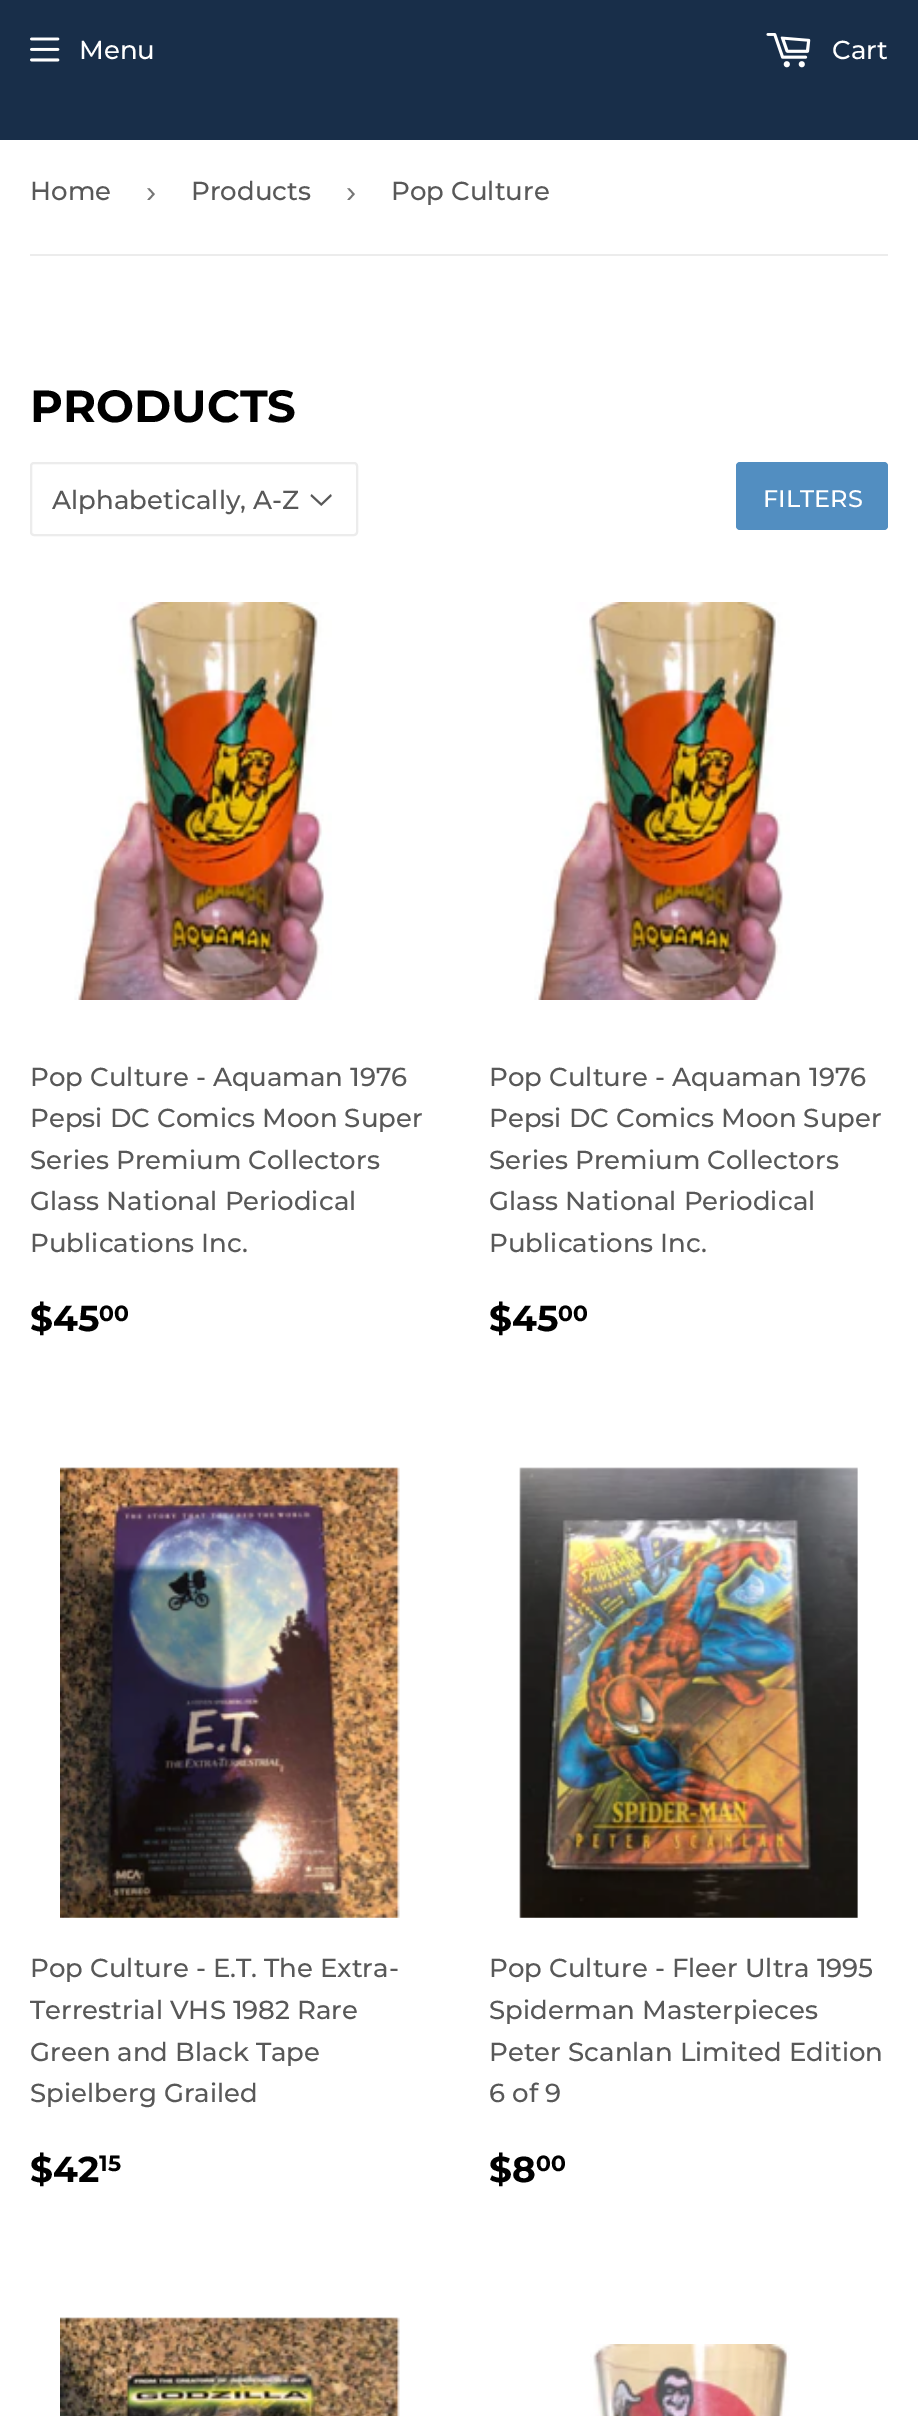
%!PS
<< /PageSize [918 2416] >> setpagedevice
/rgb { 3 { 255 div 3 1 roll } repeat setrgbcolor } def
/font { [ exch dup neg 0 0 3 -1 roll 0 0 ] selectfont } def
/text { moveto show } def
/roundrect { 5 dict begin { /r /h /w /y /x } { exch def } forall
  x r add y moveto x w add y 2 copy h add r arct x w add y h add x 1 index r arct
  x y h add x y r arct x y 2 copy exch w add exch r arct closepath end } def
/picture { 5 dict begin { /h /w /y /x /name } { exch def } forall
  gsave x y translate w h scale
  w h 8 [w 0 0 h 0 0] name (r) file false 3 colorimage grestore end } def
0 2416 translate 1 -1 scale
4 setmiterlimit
255 255 255 rgb
0 0 918 2416 rectfill
24 46 73 rgb
0 0 918 140 rectfill
(img_01.rgb) 30 37 30 25 picture
(img_02.rgb) 766 33 45 35 picture
236 236 236 rgb
30 254 858 2 rectfill
(img_03.rgb) 310 494 22 12 picture
2 setlinewidth
31 463 326 72 3 roundrect stroke
82 142 193 rgb
736 462 152 68 4 roundrect fill
(img_04.rgb) 74 602 258 398 picture
(img_05.rgb) 534 602 256 398 picture
(img_06.rgb) 60 1467 340 451 picture
(img_07.rgb) 519 1467 339 451 picture
(img_08.rgb) 60 2317 340 99 picture
(img_09.rgb) 590 2344 200 72 picture
/Montserrat-Medium 26 font
255 255 255 rgb
(Menu) 79 59 text
(Cart) 832 59 text
88 88 88 rgb
(Home) 30 200 text
/LiberationSans-Regular 30 font
118 118 118 rgb
(›) 146 202 text
/Montserrat-Medium 26 font
88 88 88 rgb
(Products) 191 200 text
/LiberationSans-Regular 30 font
118 118 118 rgb
(›) 346 202 text
/Montserrat-Medium 26 font
88 88 88 rgb
(Pop Culture) 391 200 text
/Montserrat-Bold 45 font
0 0 0 rgb
(PRODUCTS) 30 422 text
/Montserrat-Medium 26 font
88 88 88 rgb
(Alphabetically, A-Z) 52 509 text
/Montserrat-Medium 24 font
255 255 255 rgb
(FILTERS) 763 507 text
/Montserrat-Medium 26 font
88 88 88 rgb
(Pop Culture - Aquaman 1976) 30 1086 text
(Pepsi DC Comics Moon Super) 30 1127 text
(Series Premium Collectors) 30 1169 text
(Glass National Periodical) 30 1210 text
(Publications Inc.) 30 1252 text
/Montserrat-Bold 36 font
0 0 0 rgb
($45) 30 1331 text
/Montserrat-Bold 22 font
(00) 99 1321 text
/Montserrat-Medium 26 font
88 88 88 rgb
(Pop Culture - Aquaman 1976) 489 1086 text
(Pepsi DC Comics Moon Super) 489 1127 text
(Series Premium Collectors) 489 1169 text
(Glass National Periodical) 489 1210 text
(Publications Inc.) 489 1252 text
/Montserrat-Bold 36 font
0 0 0 rgb
($45) 489 1331 text
/Montserrat-Bold 22 font
(00) 558 1321 text
/Montserrat-Medium 26 font
88 88 88 rgb
(Pop Culture - E.T. The Extra-) 30 1977 text
(Terrestrial VHS 1982 Rare) 30 2019 text
(Green and Black Tape) 30 2061 text
(Spielberg Grailed) 30 2102 text
/Montserrat-Bold 36 font
0 0 0 rgb
($42) 30 2182 text
/Montserrat-Bold 22 font
(15) 99 2171 text
/Montserrat-Medium 26 font
88 88 88 rgb
(Pop Culture - Fleer Ultra 1995) 489 1977 text
(Spiderman Masterpieces) 489 2019 text
(Peter Scanlan Limited Edition) 489 2061 text
(6 of 9) 489 2102 text
/Montserrat-Bold 36 font
0 0 0 rgb
($8) 489 2182 text
/Montserrat-Bold 22 font
(00) 536 2171 text
showpage
